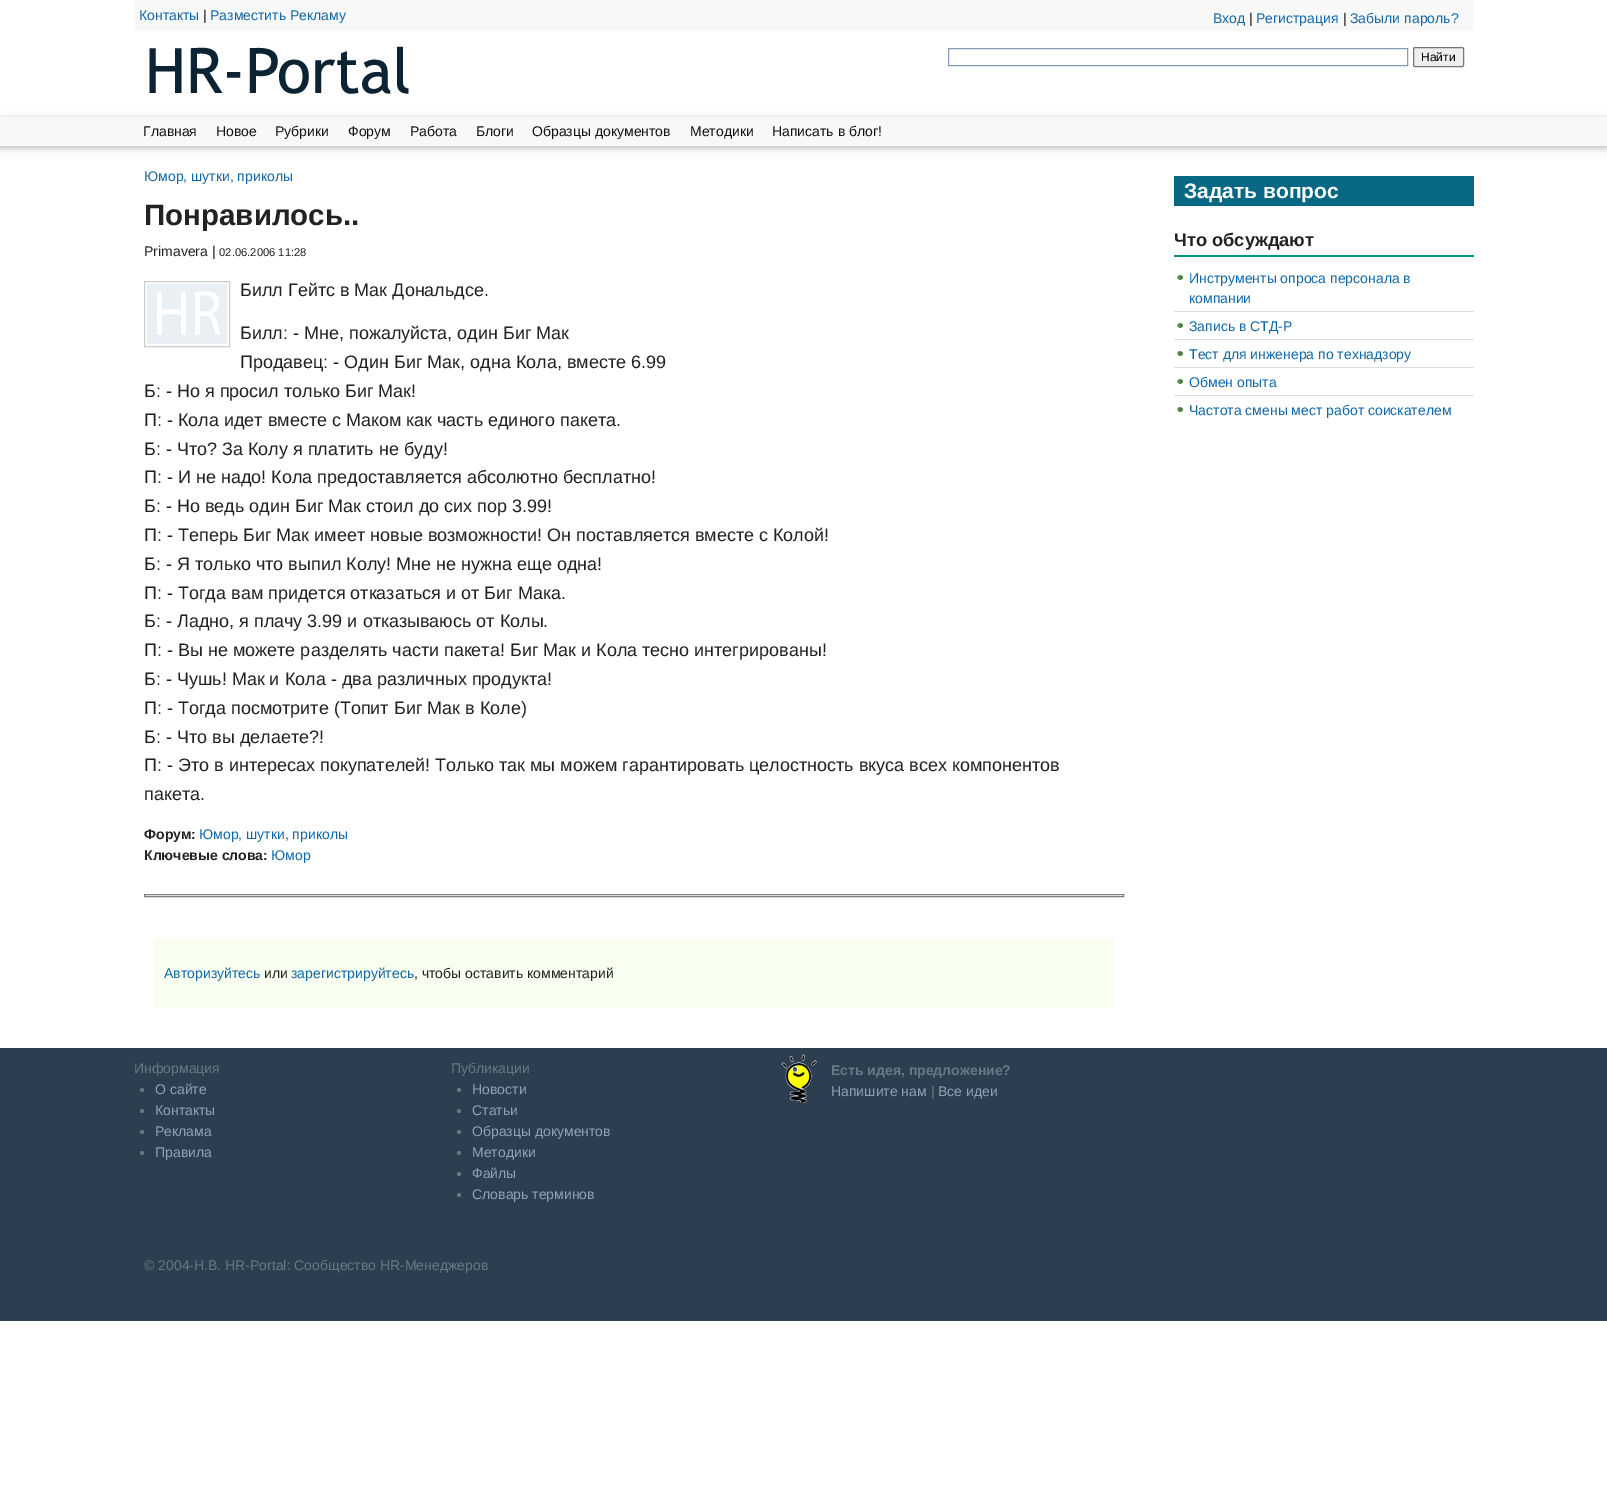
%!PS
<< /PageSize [1607 1505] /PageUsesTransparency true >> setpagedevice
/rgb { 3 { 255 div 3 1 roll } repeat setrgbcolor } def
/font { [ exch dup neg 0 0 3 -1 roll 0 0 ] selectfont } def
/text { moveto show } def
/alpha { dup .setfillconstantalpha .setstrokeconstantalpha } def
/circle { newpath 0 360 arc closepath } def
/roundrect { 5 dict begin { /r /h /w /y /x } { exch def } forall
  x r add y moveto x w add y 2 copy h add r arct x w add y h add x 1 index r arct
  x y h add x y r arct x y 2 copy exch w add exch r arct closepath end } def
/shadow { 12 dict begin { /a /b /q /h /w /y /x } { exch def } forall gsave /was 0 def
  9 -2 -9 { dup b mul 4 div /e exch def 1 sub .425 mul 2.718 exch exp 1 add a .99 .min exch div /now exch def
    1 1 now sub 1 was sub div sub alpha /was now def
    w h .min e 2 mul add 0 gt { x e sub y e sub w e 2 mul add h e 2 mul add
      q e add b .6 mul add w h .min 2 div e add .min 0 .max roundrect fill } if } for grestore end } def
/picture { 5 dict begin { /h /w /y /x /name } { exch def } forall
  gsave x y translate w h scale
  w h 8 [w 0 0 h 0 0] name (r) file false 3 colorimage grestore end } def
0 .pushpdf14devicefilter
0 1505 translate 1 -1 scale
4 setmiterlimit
255 255 255 rgb
0 0 1607 1505 rectfill
248 248 248 rgb
134 0 1340 31 rectfill
(img_01.rgb) 149 46 260 48 picture
127 157 185 rgb
948.5 48.5 459 17 rectstroke
239 239 239 rgb
1413.5 47.5 50 19 1.5 roundrect gsave fill grestore
118 118 118 rgb
stroke
0 0 0 rgb
0 119 1607 29 0 5 0.12 shadow
0 119 1607 29 0 2.5 0.16 shadow
248 248 248 rgb
0 117 1607 29 rectfill
204 204 204 rgb
144.5 281.5 85 65 rectstroke
(img_02.rgb) 147 284 80 60 picture
128 128 128 rgb
144.5 894.5 979 2 rectstroke
248 255 240 rgb
154 939 960 69 rectfill
8 103 130 rgb
1174 176 300 30 rectfill
0 150 136 rgb
1174 255 300 2 rectfill
(img_03.rgb) 1177 275 6 5 picture
221 221 221 rgb
1174 311 300 1 rectfill
(img_03.rgb) 1177 323 6 5 picture
1174 339 300 1 rectfill
(img_03.rgb) 1177 351 6 5 picture
1174 367 300 1 rectfill
(img_03.rgb) 1177 379 6 5 picture
1174 395 300 1 rectfill
(img_03.rgb) 1177 407 6 5 picture
44 62 80 rgb
0 1048 1607 273 rectfill
103 119 134 rgb
142 1090 2 circle fill
142 1111 2 circle fill
142 1132 2 circle fill
142 1153 2 circle fill
459 1090 2 circle fill
459 1111 2 circle fill
459 1132 2 circle fill
459 1153 2 circle fill
459 1174 2 circle fill
459 1195 2 circle fill
(img_04.rgb) 781 1054 36 49 picture
/LiberationSans-Regular 14 font
18 104 167 rgb
(Контакты) 139 20 text
34 34 34 rgb
(|) 203 20 text
18 104 167 rgb
(Разместить Рекламу) 210 20 text
(Вход) 1213 23 text
34 34 34 rgb
(|) 1249 23 text
18 104 167 rgb
(Регистрация) 1256 23 text
34 34 34 rgb
(|) 1343 23 text
18 104 167 rgb
(Забыли пароль?) 1350 23 text
/LiberationSans-Regular 12 font
0 0 0 rgb
(Найти) 1421 61 text
/LiberationSans-Regular 14 font
17 17 17 rgb
(Главная) 143 136 text
(Новое) 216 136 text
(Рубрики) 275 136 text
(Форум) 348 136 text
(Работа) 410 136 text
(Блоги) 476 136 text
(Образцы документов) 532 136 text
(Методики) 690 136 text
(Написать в блог!) 772 136 text
18 104 167 rgb
(Юмор, шутки, приколы) 144 181 text
/LiberationSans-Bold 29.5 font
34 34 34 rgb
(Понравилось..) 144 225 text
/LiberationSans-Regular 14 font
(Primavera |) 144 256 text
/LiberationSans-Regular 11.25 font
(02.06.2006 11:28) 219 256 text
/LiberationSans-Regular 18 font
(Билл Гейтс в Мак Дональдсе.) 240 296 text
(Билл: - Мне, пожалуйста, один Биг Мак) 240 339 text
(Продавец: - Один Биг Мак, одна Кола, вместе 6.99) 240 368 text
(Б: - Но я просил только Биг Мак!) 144 397 text
(П: - Кола идет вместе с Маком как часть единого пакета.) 144 426 text
(Б: - Что? За Колу я платить не буду!) 144 455 text
(П: - И не надо! Кола предоставляется абсолютно бесплатно!) 144 483 text
(Б: - Но ведь один Биг Мак стоил до сих пор 3.99!) 144 512 text
(П: - Теперь Биг Мак имеет новые возможности! Он поставляется вместе с Колой!) 144 541 text
(Б: - Я только что выпил Колу! Мне не нужна еще одна!) 144 570 text
(П: - Тогда вам придется отказаться и от Биг Мака.) 144 599 text
(Б: - Ладно, я плачу 3.99 и отказываюсь от Колы.) 144 627 text
(П: - Вы не можете разделять части пакета! Биг Мак и Кола тесно интегрированы!) 144 656 text
(Б: - Чушь! Мак и Кола - два различных продукта!) 144 685 text
(П: - Тогда посмотрите \(Топит Биг Мак в Коле\)) 144 714 text
(Б: - Что вы делаете?!) 144 743 text
(П: - Это в интересах покупателей! Только так мы можем гарантировать целостность вкуса всех компонентов) 144 771 text
(пакета.) 144 800 text
/LiberationSans-Bold 14 font
(Форум:) 144 839 text
/LiberationSans-Regular 14 font
18 104 167 rgb
(Юмор, шутки, приколы) 199 839 text
/LiberationSans-Bold 14 font
34 34 34 rgb
(Ключевые слова:) 144 860 text
/LiberationSans-Regular 14 font
18 104 167 rgb
(Юмор) 271 860 text
(Авторизуйтесь) 164 978 text
34 34 34 rgb
(или) 264 978 text
18 104 167 rgb
(зарегистрируйтесь) 291 978 text
34 34 34 rgb
(, чтобы оставить комментарий) 414 978 text
/LiberationSans-Bold 21 font
255 255 255 rgb
(Задать вопрос) 1184 198 text
/LiberationSans-Bold 18.25 font
34 34 34 rgb
(Что обсуждают) 1174 246 text
/LiberationSans-Regular 14 font
18 104 167 rgb
(Инструменты опроса персонала в) 1189 283 text
(компании) 1189 303 text
(Запись в СТД-Р) 1189 331 text
(Тест для инженера по технадзору) 1189 359 text
(Обмен опыта) 1189 387 text
(Частота смены мест работ соискателем) 1189 415 text
103 119 134 rgb
(Информация) 134 1073 text
141 163 184 rgb
(О сайте) 155 1094 text
(Контакты) 155 1115 text
(Реклама) 155 1136 text
(Правила) 155 1157 text
103 119 134 rgb
(Публикации) 451 1073 text
141 163 184 rgb
(Новости) 472 1094 text
(Статьи) 472 1115 text
(Образцы документов) 472 1136 text
(Методики) 472 1157 text
(Файлы) 472 1178 text
(Словарь терминов) 472 1199 text
/LiberationSans-Bold 14 font
103 119 134 rgb
(Есть идея, предложение?) 831 1075 text
/LiberationSans-Regular 14 font
141 163 184 rgb
(Напишите нам) 831 1096 text
103 119 134 rgb
(|) 931 1096 text
141 163 184 rgb
(Все идеи) 938 1096 text
103 119 134 rgb
(© 2004-Н.В. HR-Portal: Сообщество HR-Менеджеров) 144 1270 text
.poppdf14devicefilter showpage
